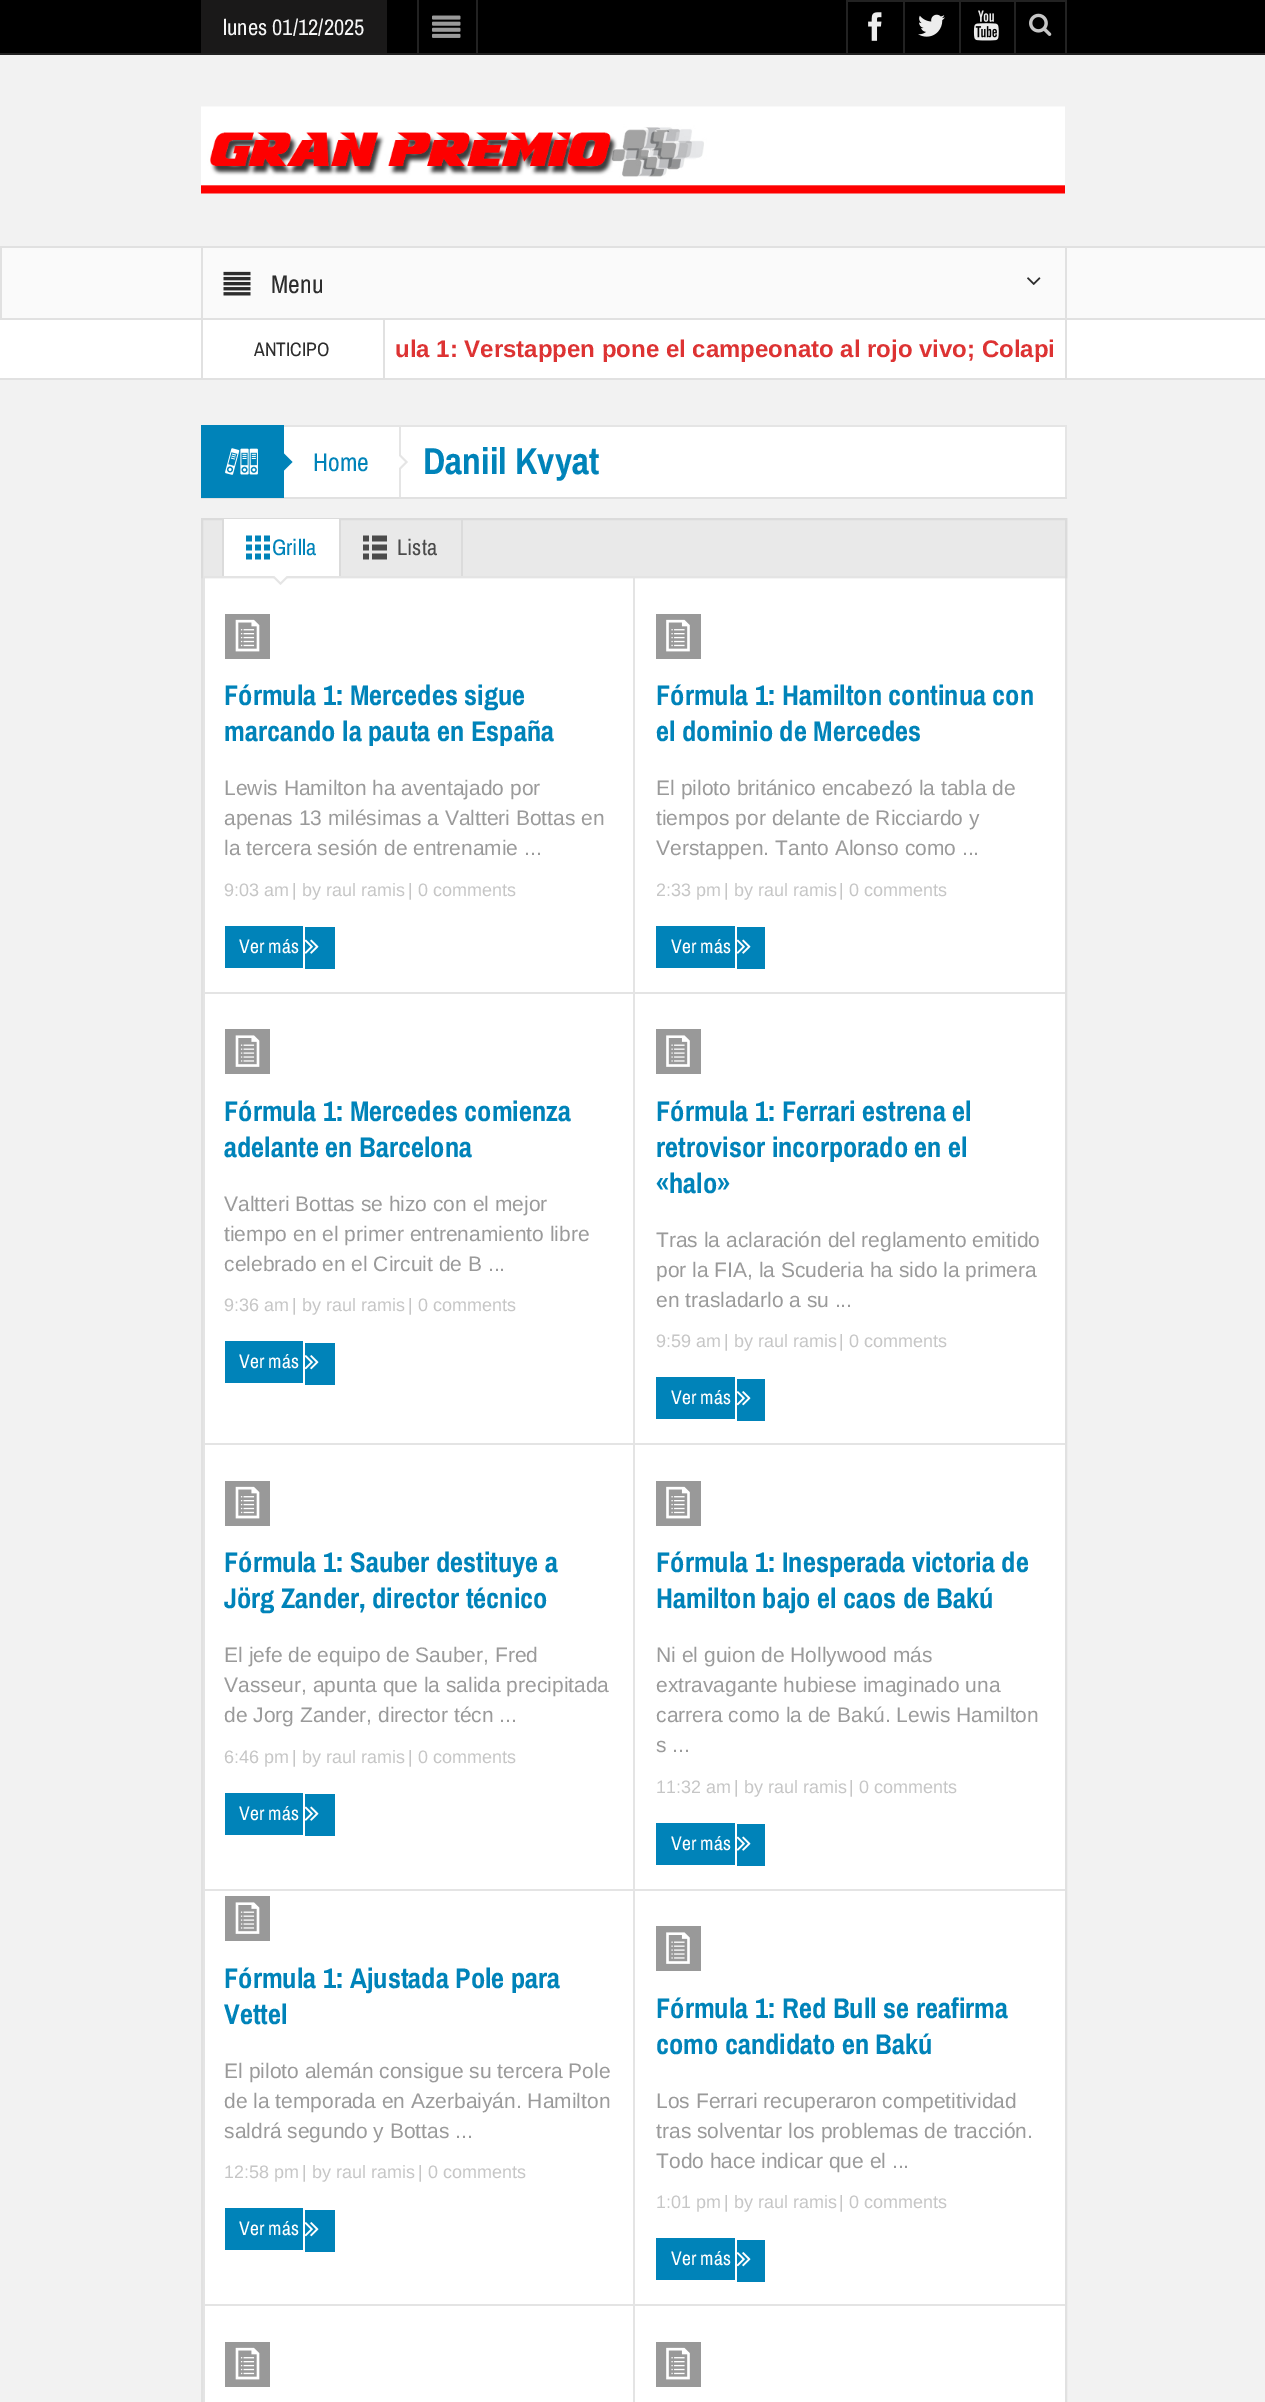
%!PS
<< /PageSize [1265 2402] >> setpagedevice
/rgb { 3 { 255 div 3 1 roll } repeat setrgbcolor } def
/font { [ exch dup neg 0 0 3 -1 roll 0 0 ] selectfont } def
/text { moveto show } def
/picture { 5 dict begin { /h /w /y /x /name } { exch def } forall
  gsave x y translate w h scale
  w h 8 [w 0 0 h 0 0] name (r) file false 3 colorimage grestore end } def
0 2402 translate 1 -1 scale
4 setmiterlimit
242 242 242 rgb
0 0 1265 2402 rectfill
0 0 0 rgb
0 0 1265 53 rectfill
34 34 34 rgb
0 53 1265 2 rectfill
26 25 25 rgb
201 0 186 53 rectfill
34 34 34 rgb
476 0 2 53 rectfill
417 0 2 53 rectfill
(img_01.rgb) 432 15 29 23 picture
846 0 221 2 rectfill
846 0 2 53 rectfill
(img_02.rgb) 868 12 14 29 picture
903 0 2 53 rectfill
(img_03.rgb) 918 14 27 23 picture
959 0 2 53 rectfill
(img_04.rgb) 973 10 26 31 picture
1065 0 2 53 rectfill
1014 0 2 53 rectfill
(img_05.rgb) 1029 13 23 23 picture
225 225 225 rgb
0 246 1265 2 rectfill
(img_06.rgb) 201 106 864 88 picture
250 250 250 rgb
2 248 1263 70 rectfill
225 225 225 rgb
0 318 1265 2 rectfill
0 248 2 72 rectfill
1065 248 2 70 rectfill
201 248 2 70 rectfill
(img_07.rgb) 223 271 28 25 picture
(img_08.rgb) 1027 277 14 8 picture
255 255 255 rgb
0 320 1265 58 rectfill
225 225 225 rgb
0 378 1265 2 rectfill
383 320 2 58 rectfill
201 320 2 58 rectfill
1065 320 2 58 rectfill
255 255 255 rgb
284 427 781 70 rectfill
229 229 229 rgb
284 425 783 2 rectfill
1065 425 2 73 rectfill
225 225 225 rgb
201 497 866 2 rectfill
0 131 185 rgb
201 425 83 73 rectfill
(img_09.rgb) 225 448 33 27 picture
283.5 471 moveto 0 -18 rlineto 9 9 rlineto closepath fill
229 229 229 rgb
399 426 2 71 rectfill
399 471 moveto 0 -18 rlineto 9 9 rlineto closepath fill
255 255 255 rgb
399 468 moveto 0 -12 rlineto 6 6 rlineto closepath fill
205 578 860 1824 rectfill
225 225 225 rgb
2 setlinewidth
202 519 864 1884 rectstroke
233 233 233 rgb
202 519 moveto 864 0 rlineto 0 58 rlineto -864 0 rlineto closepath gsave fill grestore
219 219 219 rgb
stroke
255 255 255 rgb
224 519 115 57 rectfill
219 219 219 rgb
222 519 2 57 rectfill
(img_10.rgb) 246 535 24 25 picture
228 228 228 rgb
203 576 862 2 rectfill
229 229 229 rgb
271.5 576 moveto 18 0 rlineto -9 9 rlineto closepath fill
255 255 255 rgb
274.5 576 moveto 12 0 rlineto -6 6 rlineto closepath fill
219 219 219 rgb
461 519 2 57 rectfill
339 519 2 57 rectfill
(img_11.rgb) 363 535 24 25 picture
228 228 228 rgb
203 576 2 416 rectfill
153 153 153 rgb
225 614 45 45 rectfill
(img_12.rgb) 235 619 25 33 picture
0 131 185 rgb
225 926 78 42 rectfill
305 927 30 42 rectfill
(img_13.rgb) 305 939 14 15 picture
228 228 228 rgb
633 576 2 416 rectfill
153 153 153 rgb
656 614 45 45 rectfill
(img_14.rgb) 666 619 24 33 picture
0 131 185 rgb
656 926 79 42 rectfill
737 927 28 42 rectfill
(img_13.rgb) 737 939 14 15 picture
228 228 228 rgb
203 992 862 2 rectfill
203 992 2 1410 rectfill
153 153 153 rgb
225 1029 45 45 rectfill
(img_15.rgb) 235 1035 25 32 picture
0 131 185 rgb
225 1341 78 42 rectfill
305 1343 30 42 rectfill
(img_16.rgb) 305 1355 14 15 picture
228 228 228 rgb
633 992 2 1410 rectfill
153 153 153 rgb
656 1029 45 45 rectfill
(img_17.rgb) 666 1035 24 32 picture
0 131 185 rgb
656 1377 79 42 rectfill
737 1379 28 42 rectfill
(img_16.rgb) 737 1391 14 15 picture
228 228 228 rgb
203 1443 862 2 rectfill
153 153 153 rgb
225 1481 45 45 rectfill
(img_12.rgb) 235 1486 25 33 picture
0 131 185 rgb
225 1793 78 42 rectfill
305 1794 30 42 rectfill
(img_13.rgb) 305 1806 14 15 picture
153 153 153 rgb
656 1481 45 45 rectfill
(img_14.rgb) 666 1486 24 33 picture
0 131 185 rgb
656 1823 79 42 rectfill
737 1824 28 42 rectfill
(img_13.rgb) 737 1836 14 15 picture
228 228 228 rgb
203 1889 862 2 rectfill
153 153 153 rgb
225 1896 45 45 rectfill
(img_15.rgb) 235 1902 25 32 picture
0 131 185 rgb
225 2208 78 42 rectfill
305 2210 30 42 rectfill
(img_16.rgb) 305 2222 14 15 picture
153 153 153 rgb
656 1926 45 45 rectfill
(img_17.rgb) 666 1932 24 32 picture
0 131 185 rgb
656 2238 79 42 rectfill
737 2240 28 42 rectfill
(img_16.rgb) 737 2252 14 15 picture
228 228 228 rgb
203 2304 862 2 rectfill
153 153 153 rgb
225 2342 45 45 rectfill
(img_12.rgb) 235 2347 25 33 picture
656 2342 45 45 rectfill
(img_14.rgb) 666 2347 24 33 picture
/ArchivoNarrow-Regular 22.5 font
245 245 245 rgb
(lunes 01/12/2025) 223 35 text
/ArchivoNarrow-Regular 25.5 font
45 45 45 rgb
(Menu) 271 293 text
/ArchivoNarrow-Regular 19.5 font
(ANTICIPO) 254 356 text
/LiberationSans-Bold 24 font
221 51 51 rgb
(ula 1: Verstappen pone el campeonato al rojo vivo; Colapi) 395 357 text
/ArchivoNarrow-Regular 25.5 font
0 131 185 rgb
(Home) 313 471 text
/ArchivoNarrow-Bold 37.5 font
(Daniil Kvyat) 423 474 text
/ArchivoNarrow-Regular 22.5 font
(Grilla) 272 555 text
75 75 75 rgb
(Lista) 397 555 text
/ArchivoNarrow-Bold 28.5 font
0 131 185 rgb
(Fórmula 1: Mercedes sigue) 224 705 text
(marcando la pauta en España) 224 741 text
/LiberationSans-Regular 21 font
154 154 154 rgb
(Lewis Hamilton ha aventajado por) 224 795 text
(apenas 13 milésimas a Valtteri Bottas en) 224 825 text
(la tercera sesión de entrenamie ...) 224 855 text
/LiberationSans-Regular 18 font
198 198 198 rgb
(9:03 am) 224 896 text
(| by raul ramis) 292 896 text
(| 0 comments) 408 896 text
/ArchivoNarrow-Regular 19.5 font
255 255 255 rgb
(Ver más) 239 953 text
/ArchivoNarrow-Bold 28.5 font
0 131 185 rgb
(Fórmula 1: Hamilton continua con) 656 705 text
(el dominio de Mercedes) 656 741 text
/LiberationSans-Regular 21 font
154 154 154 rgb
(El piloto británico encabezó la tabla de) 656 795 text
(tiempos por delante de Ricciardo y) 656 825 text
(Verstappen. Tanto Alonso como ...) 656 855 text
/LiberationSans-Regular 18 font
198 198 198 rgb
(2:33 pm) 656 896 text
(| by raul ramis) 724 896 text
(| 0 comments) 839 896 text
/ArchivoNarrow-Regular 19.5 font
255 255 255 rgb
(Ver más) 671 953 text
/ArchivoNarrow-Bold 28.5 font
0 131 185 rgb
(Fórmula 1: Mercedes comienza) 224 1121 text
(adelante en Barcelona) 224 1157 text
/LiberationSans-Regular 21 font
154 154 154 rgb
(Valtteri Bottas se hizo con el mejor) 224 1211 text
(tiempo en el primer entrenamiento libre) 224 1241 text
(celebrado en el Circuit de B ...) 224 1271 text
/LiberationSans-Regular 18 font
198 198 198 rgb
(9:36 am) 224 1311 text
(| by raul ramis) 292 1311 text
(| 0 comments) 408 1311 text
/ArchivoNarrow-Regular 19.5 font
255 255 255 rgb
(Ver más) 239 1368 text
/ArchivoNarrow-Bold 28.5 font
0 131 185 rgb
(Fórmula 1: Ferrari estrena el) 656 1121 text
(retrovisor incorporado en el) 656 1157 text
(«halo») 656 1193 text
/LiberationSans-Regular 21 font
154 154 154 rgb
(Tras la aclaración del reglamento emitido) 656 1247 text
(por la FIA, la Scuderia ha sido la primera) 656 1277 text
(en trasladarlo a su ...) 656 1307 text
/LiberationSans-Regular 18 font
198 198 198 rgb
(9:59 am) 656 1347 text
(| by raul ramis) 724 1347 text
(| 0 comments) 839 1347 text
/ArchivoNarrow-Regular 19.5 font
255 255 255 rgb
(Ver más) 671 1404 text
/ArchivoNarrow-Bold 28.5 font
0 131 185 rgb
(Fórmula 1: Sauber destituye a) 224 1572 text
(Jörg Zander, director técnico) 224 1608 text
/LiberationSans-Regular 21 font
154 154 154 rgb
(El jefe de equipo de Sauber, Fred) 224 1662 text
(Vasseur, apunta que la salida precipitada) 224 1692 text
(de Jorg Zander, director técn ...) 224 1722 text
/LiberationSans-Regular 18 font
198 198 198 rgb
(6:46 pm) 224 1763 text
(| by raul ramis) 292 1763 text
(| 0 comments) 408 1763 text
/ArchivoNarrow-Regular 19.5 font
255 255 255 rgb
(Ver más) 239 1820 text
/ArchivoNarrow-Bold 28.5 font
0 131 185 rgb
(Fórmula 1: Inesperada victoria de) 656 1572 text
(Hamilton bajo el caos de Bakú) 656 1608 text
/LiberationSans-Regular 21 font
154 154 154 rgb
(Ni el guion de Hollywood más) 656 1662 text
(extravagante hubiese imaginado una) 656 1692 text
(carrera como la de Bakú. Lewis Hamilton) 656 1722 text
(s ...) 656 1752 text
/LiberationSans-Regular 18 font
198 198 198 rgb
(11:32 am) 656 1793 text
(| by raul ramis) 734 1793 text
(| 0 comments) 849 1793 text
/ArchivoNarrow-Regular 19.5 font
255 255 255 rgb
(Ver más) 671 1850 text
/ArchivoNarrow-Bold 28.5 font
0 131 185 rgb
(Fórmula 1: Ajustada Pole para) 224 1988 text
(Vettel) 224 2024 text
/LiberationSans-Regular 21 font
154 154 154 rgb
(El piloto alemán consigue su tercera Pole) 224 2078 text
(de la temporada en Azerbaiyán. Hamilton) 224 2108 text
(saldrá segundo y Bottas ...) 224 2138 text
/LiberationSans-Regular 18 font
198 198 198 rgb
(12:58 pm) 224 2178 text
(| by raul ramis) 302 2178 text
(| 0 comments) 418 2178 text
/ArchivoNarrow-Regular 19.5 font
255 255 255 rgb
(Ver más) 239 2235 text
/ArchivoNarrow-Bold 28.5 font
0 131 185 rgb
(Fórmula 1: Red Bull se reafirma) 656 2018 text
(como candidato en Bakú) 656 2054 text
/LiberationSans-Regular 21 font
154 154 154 rgb
(Los Ferrari recuperaron competitividad) 656 2108 text
(tras solventar los problemas de tracción.) 656 2138 text
(Todo hace indicar que el ...) 656 2168 text
/LiberationSans-Regular 18 font
198 198 198 rgb
(1:01 pm) 656 2208 text
(| by raul ramis) 724 2208 text
(| 0 comments) 839 2208 text
/ArchivoNarrow-Regular 19.5 font
255 255 255 rgb
(Ver más) 671 2265 text
showpage
